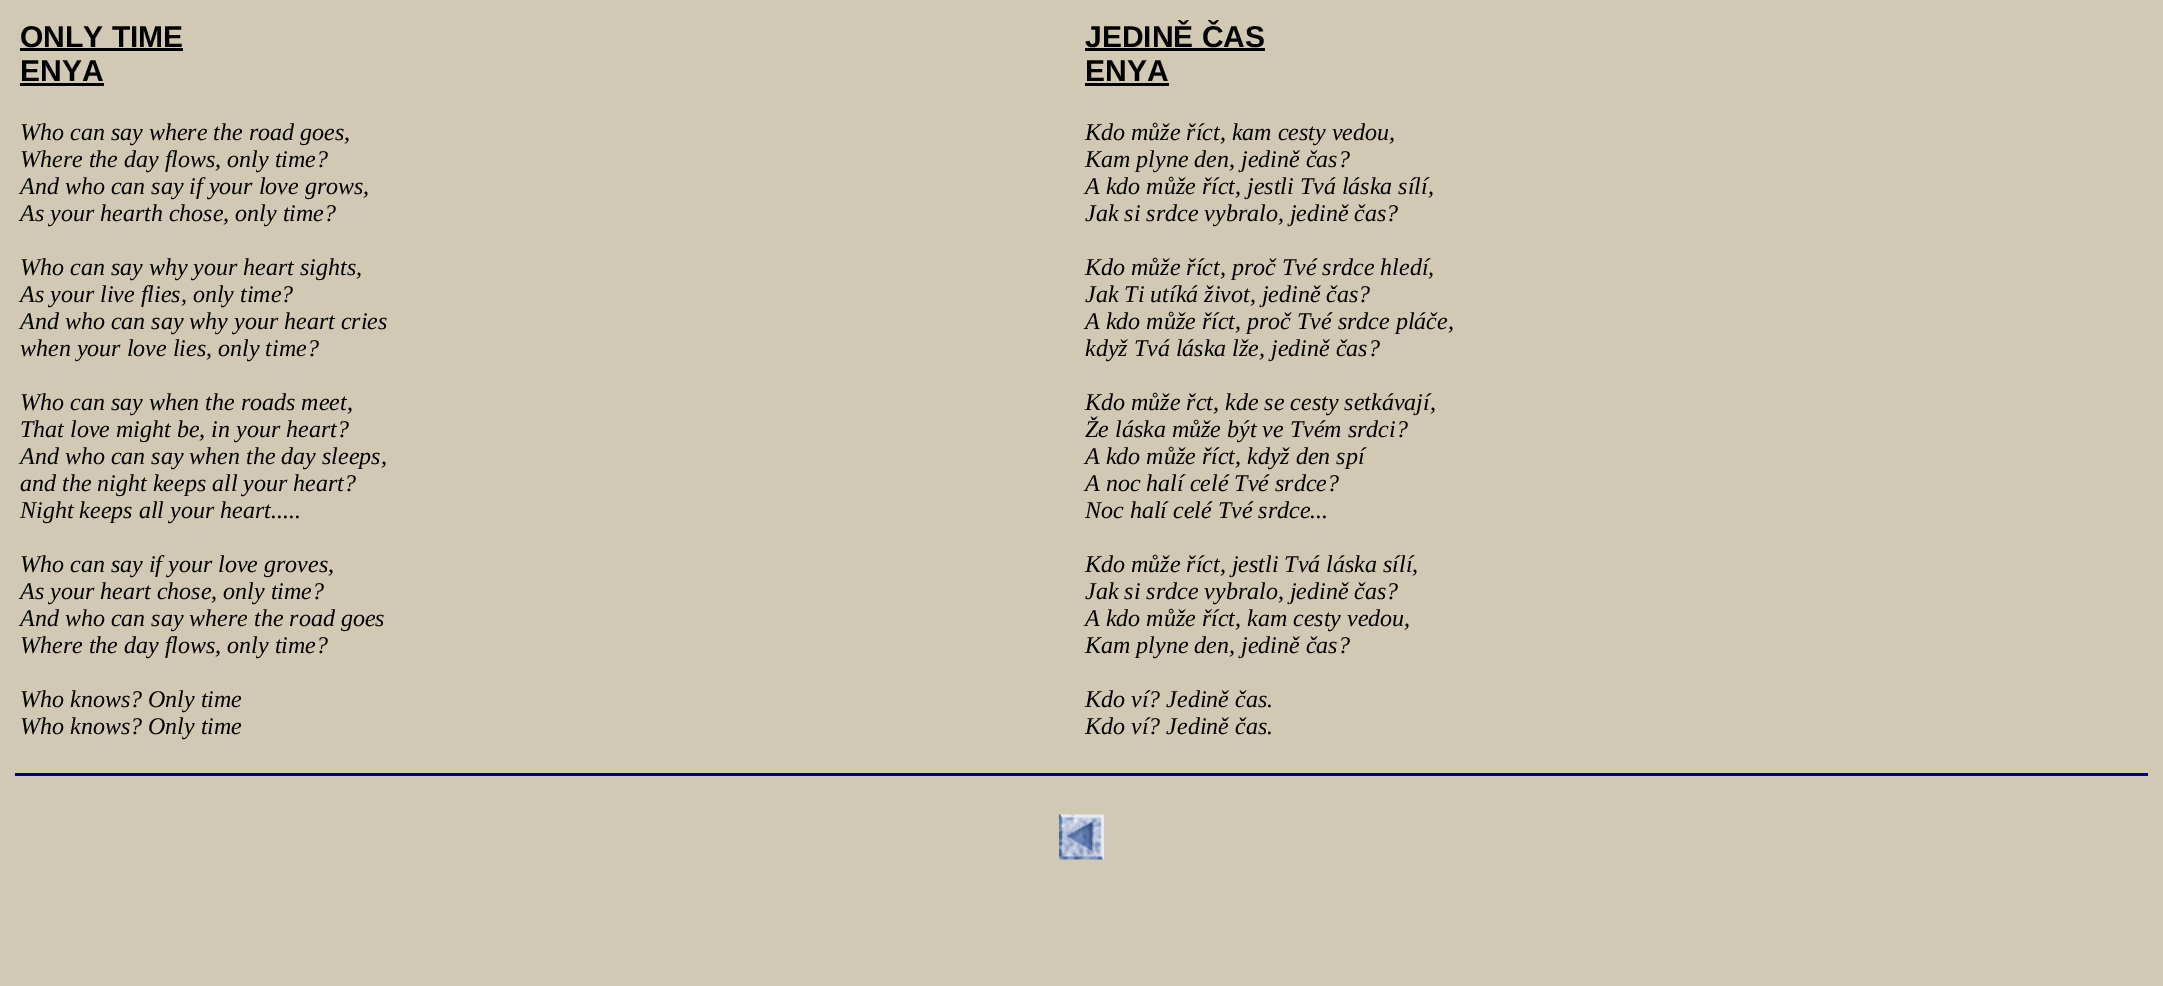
%!PS
<< /PageSize [2163 986] >> setpagedevice
/rgb { 3 { 255 div 3 1 roll } repeat setrgbcolor } def
/font { [ exch dup neg 0 0 3 -1 roll 0 0 ] selectfont } def
/text { moveto show } def
/picture { 5 dict begin { /h /w /y /x /name } { exch def } forall
  gsave x y translate w h scale
  w h 8 [w 0 0 h 0 0] name (r) file false 3 colorimage grestore end } def
0 986 translate 1 -1 scale
4 setmiterlimit
209 201 180 rgb
0 0 2163 986 rectfill
0 0 0 rgb
20 48 163 3 rectfill
20 83 84 3 rectfill
1085 48 180 3 rectfill
1085 83 84 3 rectfill
0 0 128 rgb
15 773 2133 3 rectfill
(img_01.rgb) 1059 814 45 46 picture
/LiberationSans-Bold 30 font
0 0 0 rgb
(ONLY TIME) 20 47 text
(ENYA) 20 81 text
/LiberationSerif-Italic 24 font
(Who can say where the road goes,) 20 140 text
(Where the day flows, only time?) 20 167 text
(And who can say if your love grows,) 20 194 text
(As your hearth chose, only time?) 20 221 text
(Who can say why your heart sights,) 20 275 text
(As your live flies, only time?) 20 302 text
(And who can say why your heart cries) 20 329 text
(when your love lies, only time?) 20 356 text
(Who can say when the roads meet,) 20 410 text
(That love might be, in your heart?) 20 437 text
(And who can say when the day sleeps,) 20 464 text
(and the night keeps all your heart?) 20 491 text
(Night keeps all your heart.....) 20 518 text
(Who can say if your love groves,) 20 572 text
(As your heart chose, only time?) 20 599 text
(And who can say where the road goes) 20 626 text
(Where the day flows, only time?) 20 653 text
(Who knows? Only time) 20 707 text
(Who knows? Only time) 20 734 text
/LiberationSans-Bold 30 font
(JEDINĚ ČAS) 1085 47 text
(ENYA) 1085 81 text
/LiberationSerif-Italic 24 font
(Kdo může říct, kam cesty vedou,) 1085 140 text
(Kam plyne den, jedině čas?) 1085 167 text
(A kdo může říct, jestli Tvá láska sílí,) 1085 194 text
(Jak si srdce vybralo, jedině čas?) 1085 221 text
(Kdo může říct, proč Tvé srdce hledí,) 1085 275 text
(Jak Ti utíká život, jedině čas?) 1085 302 text
(A kdo může říct, proč Tvé srdce pláče,) 1085 329 text
(když Tvá láska lže, jedině čas?) 1085 356 text
(Kdo může řct, kde se cesty setkávají,) 1085 410 text
(Že láska může být ve Tvém srdci?) 1085 437 text
(A kdo může říct, když den spí) 1085 464 text
(A noc halí celé Tvé srdce?) 1085 491 text
(Noc halí celé Tvé srdce...) 1085 518 text
(Kdo může říct, jestli Tvá láska sílí,) 1085 572 text
(Jak si srdce vybralo, jedině čas?) 1085 599 text
(A kdo může říct, kam cesty vedou,) 1085 626 text
(Kam plyne den, jedině čas?) 1085 653 text
(Kdo ví? Jedině čas.) 1085 707 text
(Kdo ví? Jedině čas.) 1085 734 text
showpage
